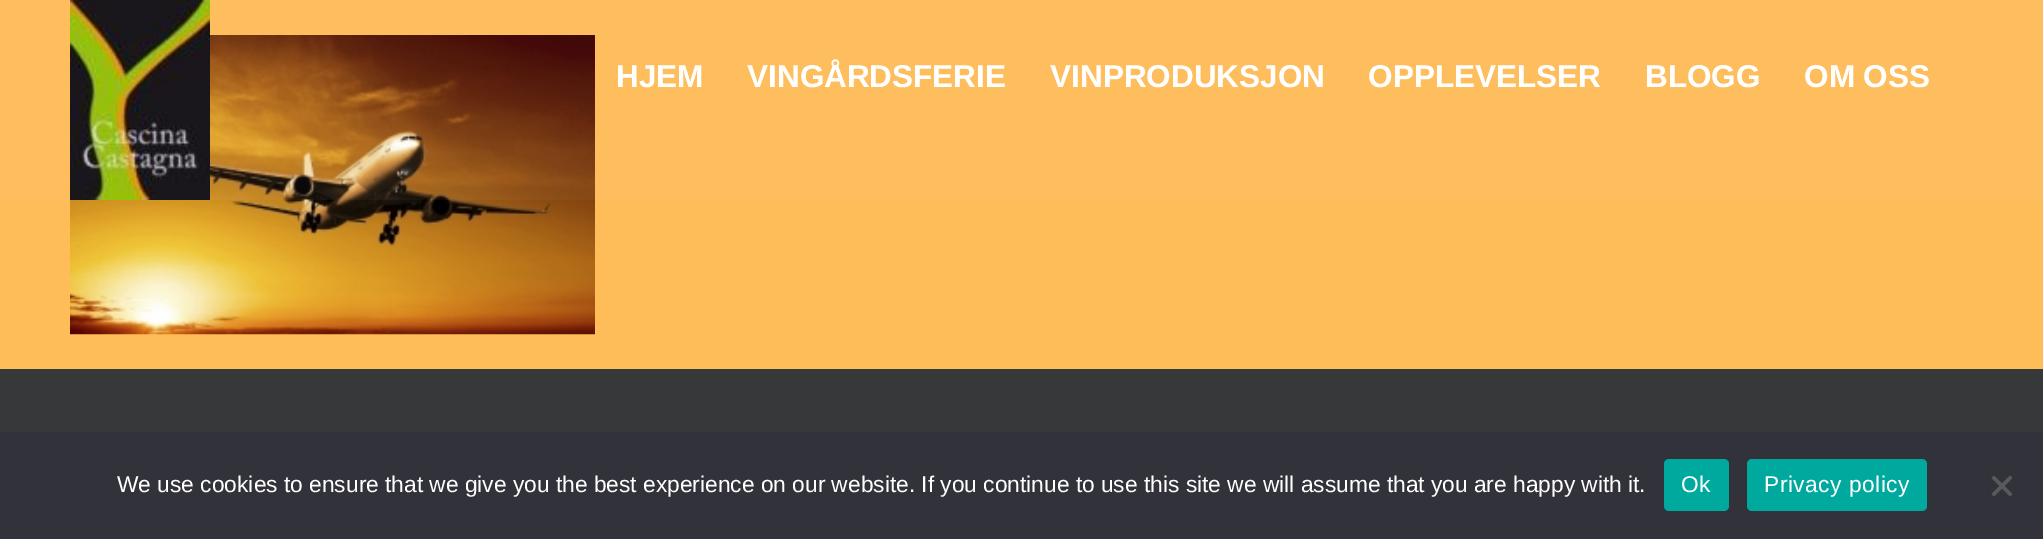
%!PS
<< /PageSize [2043 539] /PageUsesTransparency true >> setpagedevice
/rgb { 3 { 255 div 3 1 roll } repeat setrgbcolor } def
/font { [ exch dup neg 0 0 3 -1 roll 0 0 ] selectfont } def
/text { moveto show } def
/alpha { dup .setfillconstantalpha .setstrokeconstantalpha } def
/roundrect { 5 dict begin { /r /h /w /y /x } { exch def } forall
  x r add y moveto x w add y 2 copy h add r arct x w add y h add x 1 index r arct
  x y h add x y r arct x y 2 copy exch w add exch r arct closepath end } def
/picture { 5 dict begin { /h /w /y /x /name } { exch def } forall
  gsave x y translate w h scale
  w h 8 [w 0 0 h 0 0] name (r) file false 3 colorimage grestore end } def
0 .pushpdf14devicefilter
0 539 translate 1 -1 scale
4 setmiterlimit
255 189 89 rgb
0 0 2043 539 rectfill
(img_01.rgb) 70 35 525 300 picture
0.04 alpha
221 218 217 rgb
0 0 2043 200 rectfill
1 alpha
(img_02.rgb) 70 0 140 200 picture
54 56 57 rgb
0 369 2043 63 rectfill
50 50 58 rgb
0 432 2043 107 rectfill
0 169 157 rgb
1664 459 65 52 5 roundrect fill
1747 459 180 52 5 roundrect fill
89 89 93 rgb
2010 475.5 moveto 2.5 2.5 rlineto -18.5 18.5 rlineto -2.5 -2.5 rlineto closepath fill
1991.5 478 moveto 2.5 -2.5 rlineto 18.5 18.5 rlineto -2.5 2.5 rlineto closepath fill
/LiberationSans-Bold 31.5 font
255 255 255 rgb
(HJEM) 616 87 text
(VINGÅRDSFERIE) 747 87 text
(VINPRODUKSJON) 1050 87 text
(OPPLEVELSER) 1368 87 text
(BLOGG) 1645 87 text
(OM OSS) 1804 87 text
/LiberationSans-Regular 22.75 font
(We use cookies to ensure that we give you the best experience on our website. If you continue to use this site we will assume that you are happy with it.) 117 492 text
1681 492 moveto 0.5 0 (Ok) ashow
1764 492 moveto 0.5 0 (Privacy policy) ashow
.poppdf14devicefilter showpage
